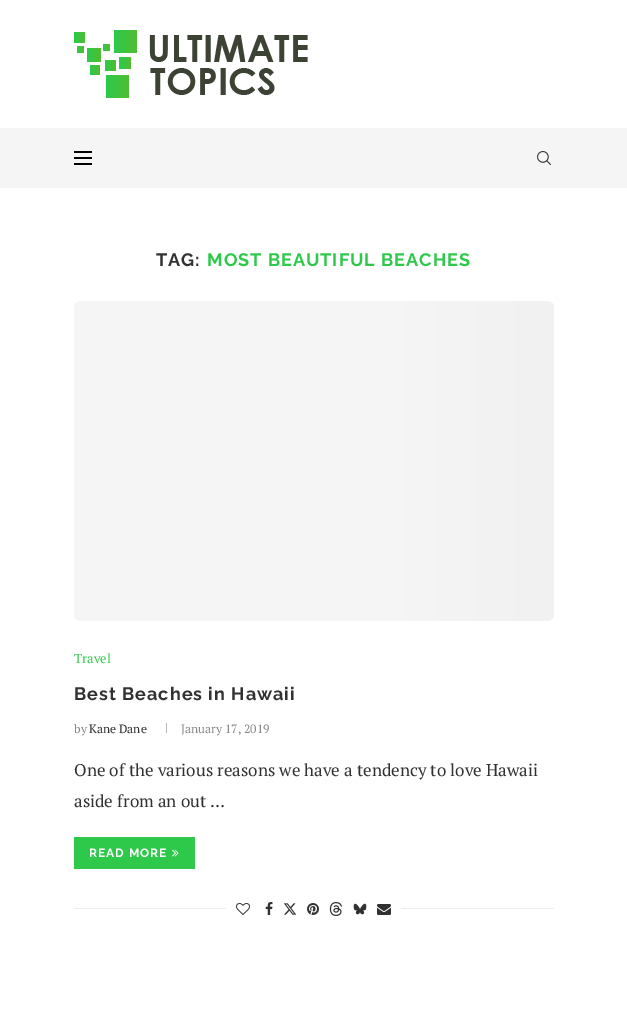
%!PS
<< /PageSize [627 1019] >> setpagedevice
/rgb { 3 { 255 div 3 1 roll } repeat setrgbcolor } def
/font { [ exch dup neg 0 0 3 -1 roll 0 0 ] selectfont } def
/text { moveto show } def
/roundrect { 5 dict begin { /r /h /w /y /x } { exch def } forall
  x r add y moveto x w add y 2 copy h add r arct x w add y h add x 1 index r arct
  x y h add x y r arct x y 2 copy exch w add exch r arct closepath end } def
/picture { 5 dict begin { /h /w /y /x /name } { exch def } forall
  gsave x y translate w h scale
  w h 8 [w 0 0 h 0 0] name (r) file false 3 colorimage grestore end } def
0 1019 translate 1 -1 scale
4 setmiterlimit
255 255 255 rgb
0 0 627 1019 rectfill
(img_01.rgb) 74 30 234 68 picture
245 245 245 rgb
0 128 627 60 rectfill
0 0 0 rgb
74 151 18 2 rectfill
74 157 18 2 rectfill
74 163 18 2 rectfill
(img_02.rgb) 537 151 14 14 picture
gsave 74 301 480 320 8 roundrect clip newpath
<< /ShadingType 2 /ColorSpace /DeviceRGB /Coords [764 461 -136 461] /Extend [true true] /Function << /FunctionType 3 /Domain [0 1] /Functions [<< /FunctionType 2 /Domain [0 1] /C0 [0.961 0.961 0.961] /C1 [0.937 0.937 0.937] /N 1 >> << /FunctionType 2 /Domain [0 1] /C0 [0.937 0.937 0.937] /C1 [0.961 0.961 0.961] /N 1 >> << /FunctionType 2 /Domain [0 1] /C0 [0.961 0.961 0.961] /C1 [0.961 0.961 0.961] /N 1 >>] /Bounds [0.15 0.4] /Encode [0 1 0 1 0 1] >> >> shfill grestore
184 184 184 rgb
166 723 1 10 rectfill
46 200 75 rgb
74 837 121 32 rectfill
(img_03.rgb) 172 849 7 8 picture
238 238 238 rgb
74 908 480 1 rectfill
255 255 255 rgb
226 908 175 1 rectfill
(img_04.rgb) 236 903 14 12 picture
(img_05.rgb) 265 902 8 13 picture
(img_06.rgb) 283 903 14 12 picture
(img_07.rgb) 307 903 12 12 picture
(img_08.rgb) 329 902 14 14 picture
(img_09.rgb) 353 903 14 12 picture
(img_10.rgb) 377 904 14 11 picture
/Raleway-Bold 18 font
49 49 49 rgb
156 266 moveto 1 0 (TAG:) ashow
46 200 75 rgb
207 266 moveto 1 0 (MOST BEAUTIFUL BEACHES) ashow
/PTSerif-Regular 13 font
(Travel) 74 663 text
/Raleway-Bold 18 font
49 49 49 rgb
74 700 moveto 1 0 (Best Beaches in Hawaii) ashow
/PTSerif-Regular 12 font
136 136 136 rgb
(by) 74 733 text
49 49 49 rgb
(Kane Dane) 89 733 text
136 136 136 rgb
(January 17, 2019) 181 733 text
/PTSerif-Regular 17 font
49 49 49 rgb
(One of the various reasons we have a tendency to love Hawaii) 74 776 text
(aside from an out …) 74 807 text
/Raleway-Bold 12 font
255 255 255 rgb
89 857 moveto 1 0 (READ MORE) ashow
showpage
